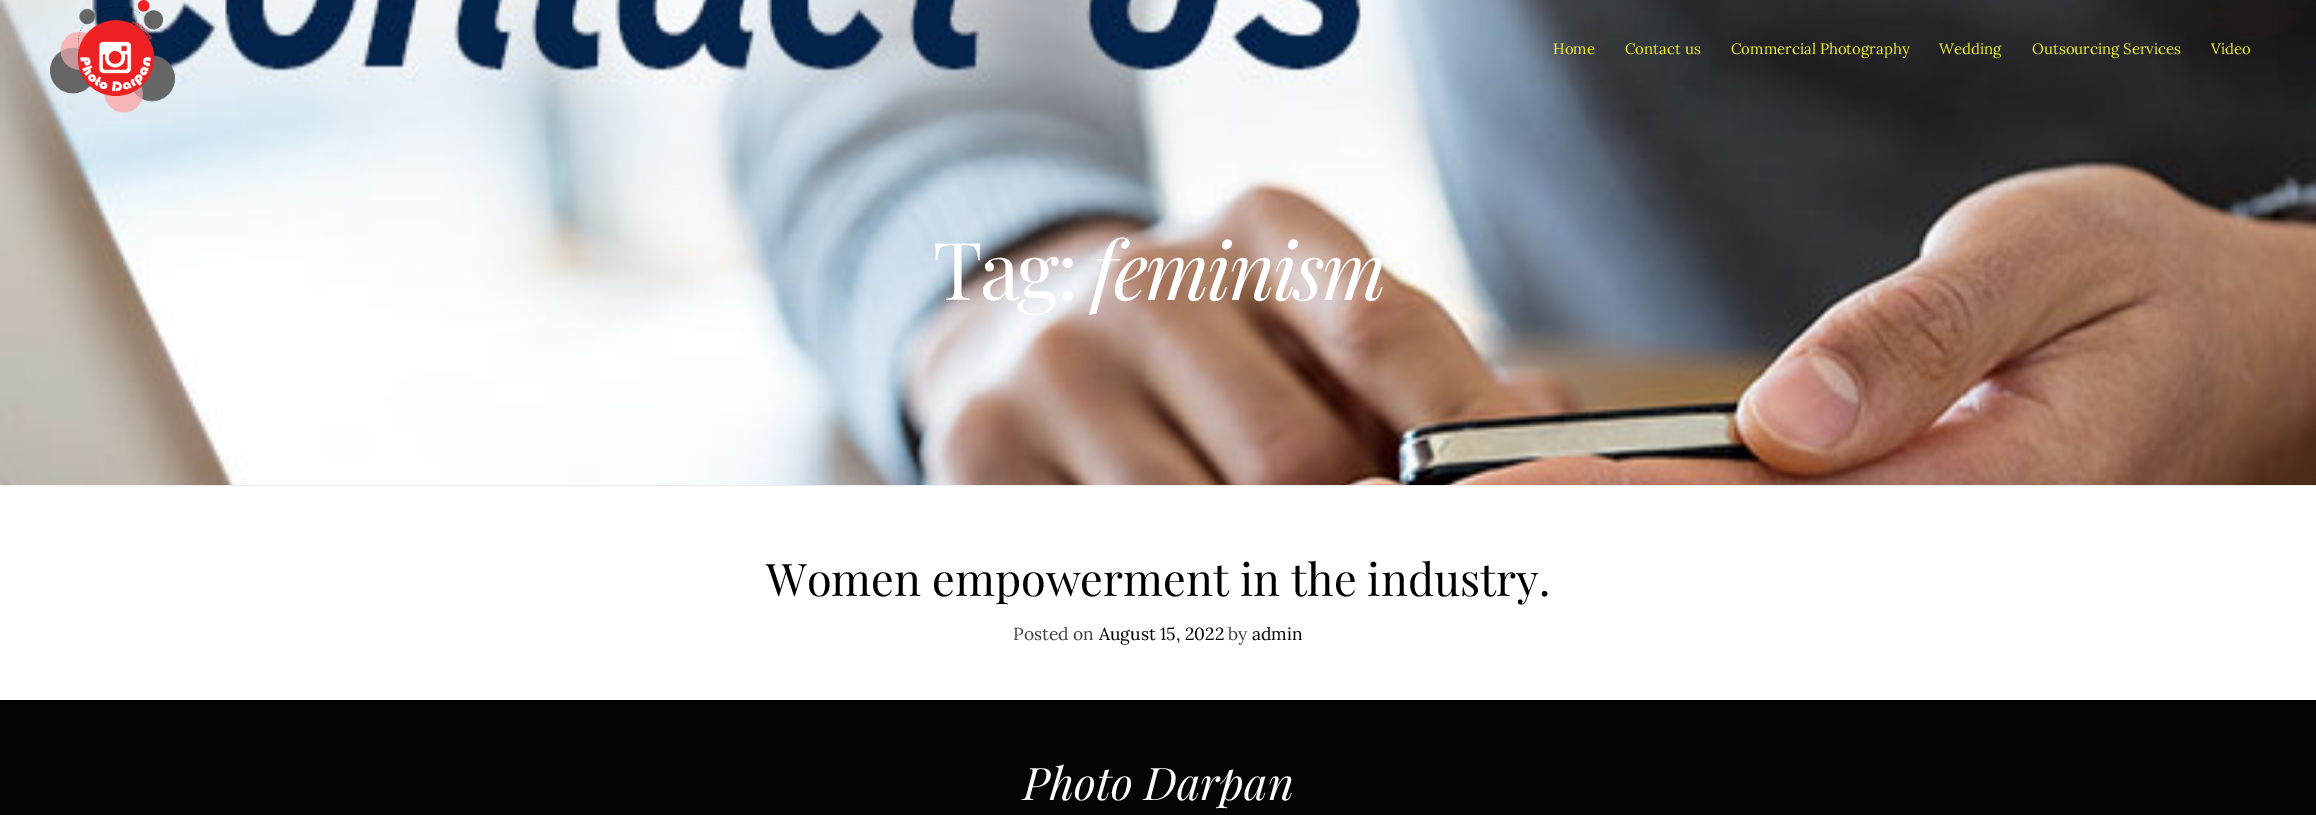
%!PS
<< /PageSize [2316 815] >> setpagedevice
/rgb { 3 { 255 div 3 1 roll } repeat setrgbcolor } def
/font { [ exch dup neg 0 0 3 -1 roll 0 0 ] selectfont } def
/text { moveto show } def
/picture { 5 dict begin { /h /w /y /x /name } { exch def } forall
  gsave x y translate w h scale
  w h 8 [w 0 0 h 0 0] name (r) file false 3 colorimage grestore end } def
0 815 translate 1 -1 scale
4 setmiterlimit
255 255 255 rgb
0 0 2316 815 rectfill
(img_01.rgb) 0 0 2316 485 picture
(img_02.rgb) 50 0 125 113 picture
237 237 237 rgb
0 485 2316 1 rectfill
4 4 4 rgb
0 700 2316 115 rectfill
/Lora-Regular 15 font
237 237 49 rgb
(Home) 1553 54 text
(Contact us) 1625 54 text
(Commercial Photography) 1731 54 text
(Wedding) 1939 54 text
(Outsourcing Services) 2032 54 text
(Video) 2211 54 text
/PlayfairDisplay-Regular 80 font
255 255 255 rgb
933 300 moveto -2.75 0 (Tag:) ashow
/PlayfairDisplay-Italic 80 font
1091 300 moveto -2.75 0 (feminism) ashow
/PlayfairDisplay-Regular 45 font
0 0 0 rgb
(Women empowerment in the industry.) 766 596 text
/Lora-Regular 17.5 font
64 64 64 rgb
(Posted on) 1013 640 text
0 0 0 rgb
(August 15, 2022) 1099 640 text
64 64 64 rgb
(by) 1228 640 text
0 0 0 rgb
(admin) 1252 640 text
/PlayfairDisplay-Italic 45 font
255 255 255 rgb
(Photo Darpan) 1023 800 text
showpage
